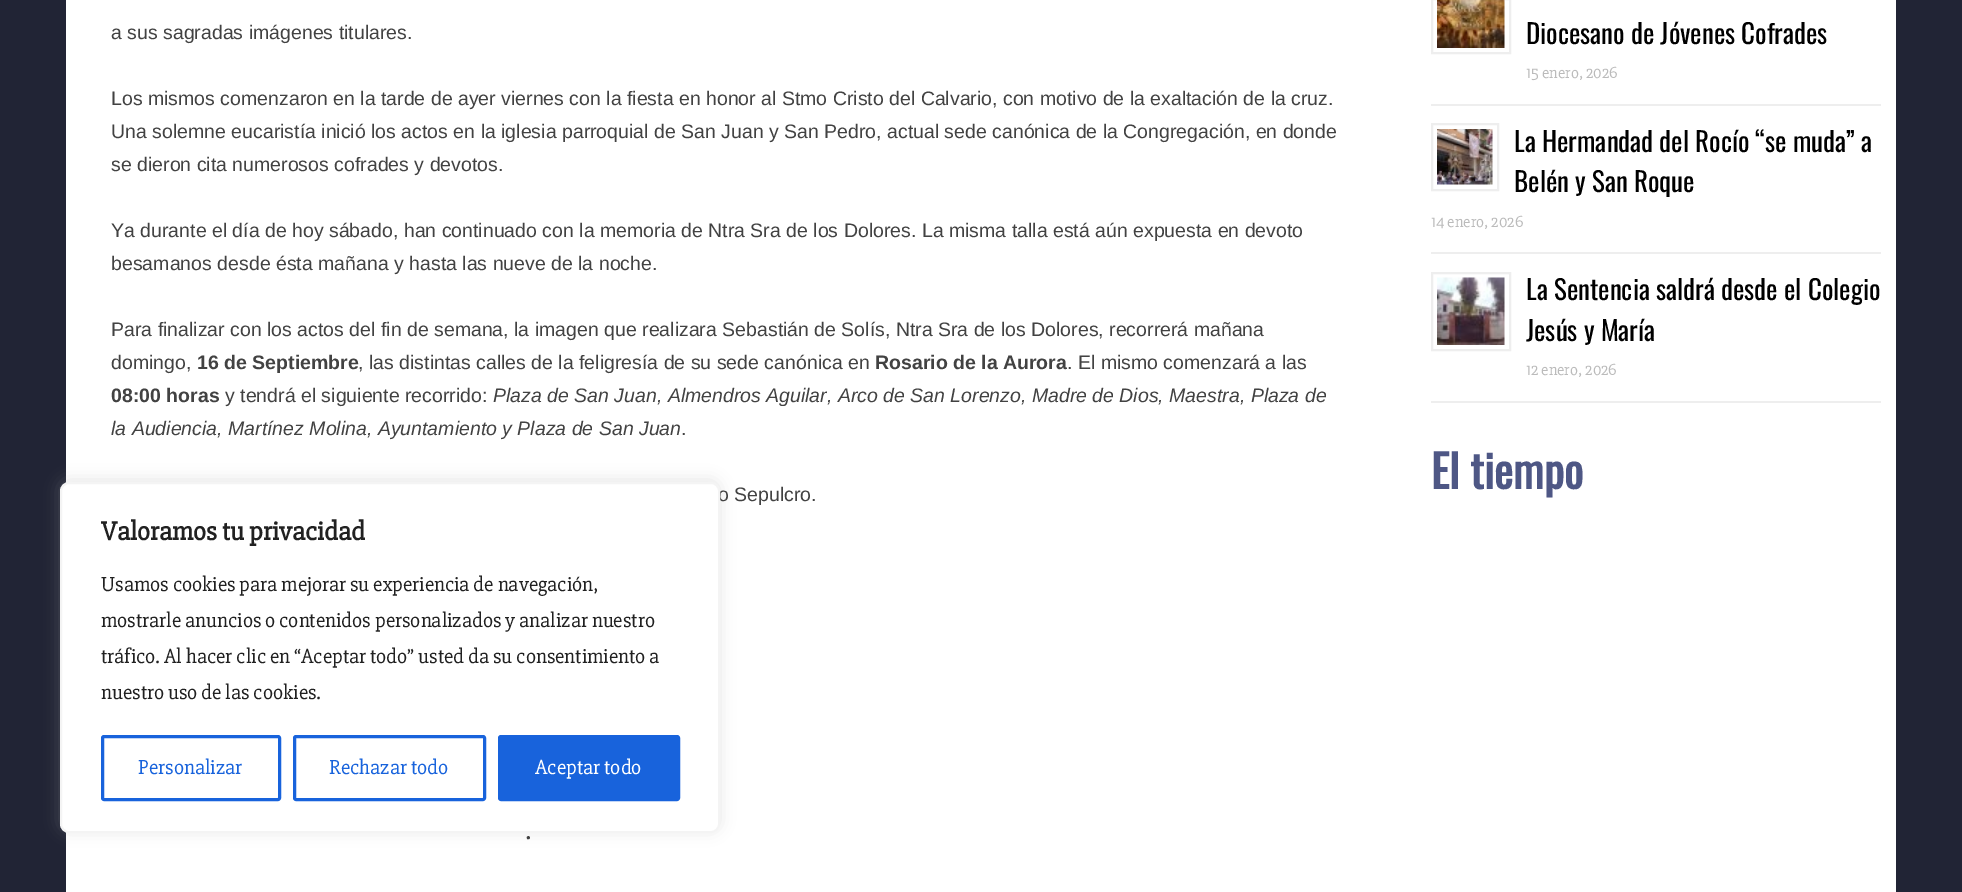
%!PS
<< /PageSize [1962 892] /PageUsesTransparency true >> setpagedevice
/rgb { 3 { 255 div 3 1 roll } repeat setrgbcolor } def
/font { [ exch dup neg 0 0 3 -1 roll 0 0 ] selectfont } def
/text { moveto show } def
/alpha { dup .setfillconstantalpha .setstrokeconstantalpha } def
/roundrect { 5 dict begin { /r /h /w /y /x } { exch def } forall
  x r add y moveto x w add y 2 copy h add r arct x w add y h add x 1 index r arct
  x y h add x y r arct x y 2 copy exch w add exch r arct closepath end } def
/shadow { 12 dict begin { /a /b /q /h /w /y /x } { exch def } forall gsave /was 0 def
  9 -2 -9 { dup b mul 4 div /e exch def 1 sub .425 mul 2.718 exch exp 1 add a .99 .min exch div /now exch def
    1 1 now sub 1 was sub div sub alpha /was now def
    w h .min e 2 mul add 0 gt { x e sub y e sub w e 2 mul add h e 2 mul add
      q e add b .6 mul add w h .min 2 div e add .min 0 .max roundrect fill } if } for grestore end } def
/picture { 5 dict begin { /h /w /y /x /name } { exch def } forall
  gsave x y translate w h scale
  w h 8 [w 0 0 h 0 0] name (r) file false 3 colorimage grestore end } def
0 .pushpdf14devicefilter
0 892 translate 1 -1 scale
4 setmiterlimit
33 36 53 rgb
0 0 1962 892 rectfill
255 255 255 rgb
66 0 1830 892 rectfill
238 238 238 rgb
1431 104 450 2 rectfill
2 setlinewidth
1432 -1 78 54 rectstroke
(img_01.rgb) 1437 0 68 48 picture
1431 252 450 2 rectfill
1432 124 66 66 rectstroke
(img_02.rgb) 1437 129 56 56 picture
1431 401 450 2 rectfill
1432 273 78 77 rectstroke
(img_03.rgb) 1437 277 68 68 picture
172 171 171 rgb
60 480 660 351 9 7.5 0.3 shadow
/LiberationSans-Regular 19.5 font
66 66 66 rgb
(a sus sagradas imágenes titulares.) 111 39 text
(Los mismos comenzaron en la tarde de ayer viernes con la fiesta en honor al Stmo Cristo del Calvario, con motivo de la exaltación de la cruz.) 111 105 text
(Una solemne eucaristía inició los actos en la iglesia parroquial de San Juan y San Pedro, actual sede canónica de la Congregación, en donde) 111 138 text
(se dieron cita numerosos cofrades y devotos.) 111 171 text
(Ya durante el día de hoy sábado, han continuado con la memoria de Ntra Sra de los Dolores. La misma talla está aún expuesta en devoto) 111 237 text
(besamanos desde ésta mañana y hasta las nueve de la noche.) 111 270 text
(Para finalizar con los actos del fin de semana, la imagen que realizara Sebastián de Solís, Ntra Sra de los Dolores, recorrerá mañana) 111 336 text
(domingo,) 111 369 text
/LiberationSans-Bold 19.5 font
(16 de Septiembre) 197 369 text
/LiberationSans-Regular 19.5 font
(, las distintas calles de la feligresía de su sede canónica en) 358 369 text
/LiberationSans-Bold 19.5 font
(Rosario de la Aurora) 875 369 text
/LiberationSans-Regular 19.5 font
(. El mismo comenzará a las) 1067 369 text
/LiberationSans-Bold 19.5 font
(08:00 horas) 111 402 text
/LiberationSans-Regular 19.5 font
(y tendrá el siguiente recorrido:) 225 402 text
/LiberationSans-Italic 19.5 font
(Plaza de San Juan, Almendros Aguilar, Arco de San Lorenzo, Madre de Dios, Maestra, Plaza de) 493 402 text
(la Audiencia, Martínez Molina, Ayuntamiento y Plaza de San Juan) 111 435 text
/LiberationSans-Regular 19.5 font
(.) 681 435 text
(o Sepulcro.) 718 501 text
/Slabo27px-Regular 27 font
(.) 525 839 text
/Oswald-Regular 27 font
0 0 0 rgb
(Diocesano de Jóvenes Cofrades) 1526 44 text
/Slabo27px-Regular 16.5 font
187 187 187 rgb
(15 enero, 2026) 1526 78 text
/Oswald-Regular 27 font
0 0 0 rgb
(La Hermandad del Rocío “se muda” a) 1514 152 text
(Belén y San Roque) 1514 192 text
/Slabo27px-Regular 16.5 font
187 187 187 rgb
(14 enero, 2026) 1431 227 text
/Oswald-Regular 27 font
0 0 0 rgb
(La Sentencia saldrá desde el Colegio) 1526 300 text
(Jesús y María) 1526 341 text
/Slabo27px-Regular 16.5 font
187 187 187 rgb
(12 enero, 2026) 1526 375 text
/Oswald-Bold 45 font
78 87 133 rgb
(El tiempo) 1431 489 text
255 255 255 rgb
61 483 658 349 8 roundrect gsave fill grestore
244 244 244 rgb
stroke
/Slabo27px-Bold 27 font
33 33 33 rgb
(Valoramos tu privacidad) 101 540 text
/Slabo27px-Regular 21 font
(Usamos cookies para mejorar su experiencia de navegación,) 101 591 text
(mostrarle anuncios o contenidos personalizados y analizar nuestro) 101 627 text
(tráfico. Al hacer clic en “Aceptar todo” usted da su consentimiento a) 101 663 text
(nuestro uso de las cookies.) 101 699 text
24 99 220 rgb
3 setlinewidth
102.5 736.5 177 63 1.5 roundrect stroke
(Personalizar) 138 774 text
294.5 736.5 190 63 1.5 roundrect stroke
(Rechazar todo) 329 774 text
499.5 736.5 179 63 1.5 roundrect gsave fill grestore
stroke
255 255 255 rgb
(Aceptar todo) 535 774 text
.poppdf14devicefilter showpage
